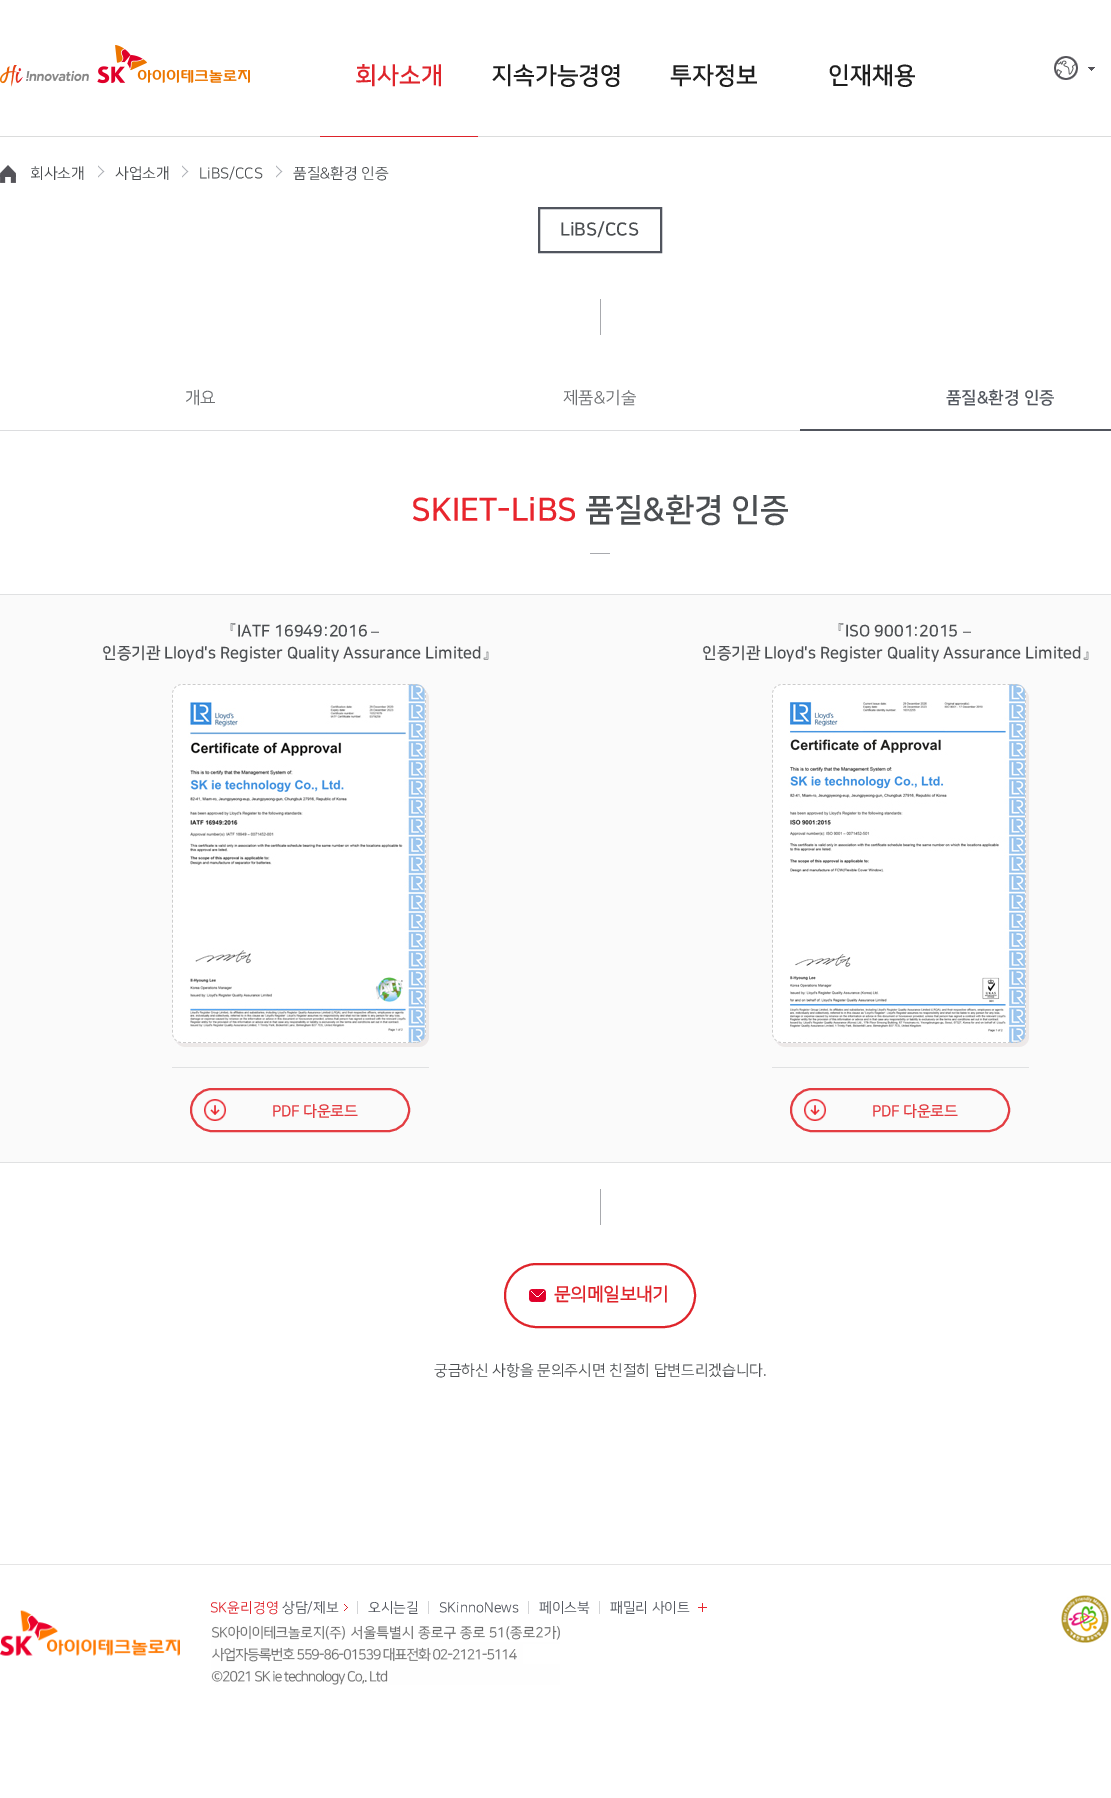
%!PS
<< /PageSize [1111 1798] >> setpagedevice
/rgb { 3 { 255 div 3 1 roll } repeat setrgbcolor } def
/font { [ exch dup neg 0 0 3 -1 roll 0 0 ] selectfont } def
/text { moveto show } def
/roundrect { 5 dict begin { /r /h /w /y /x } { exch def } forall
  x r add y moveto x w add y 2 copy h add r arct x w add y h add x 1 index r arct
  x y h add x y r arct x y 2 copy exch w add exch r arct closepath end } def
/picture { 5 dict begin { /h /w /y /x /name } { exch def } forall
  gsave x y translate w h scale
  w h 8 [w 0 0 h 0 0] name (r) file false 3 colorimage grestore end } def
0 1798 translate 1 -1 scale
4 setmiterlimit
255 255 255 rgb
0 0 1111 1798 rectfill
219 220 220 rgb
0 136 1111 1 rectfill
(img_01.rgb) 0 45 250 42 picture
221 35 43 rgb
320 136 158 1 rectfill
(img_02.rgb) 1088 67 7 4 picture
(img_03.rgb) 1054 56 24 24 picture
(img_04.rgb) 0 165 16 18 picture
(img_05.rgb) 98 165 7 13 picture
(img_05.rgb) 182 165 7 13 picture
(img_05.rgb) 276 165 7 13 picture
81 85 94 rgb
2 setlinewidth
539 208 122 44 rectstroke
168 170 174 rgb
600 299 1 36 rectfill
220 221 223 rgb
0 430 800 1 rectfill
81 85 93 rgb
800 429 311 2 rectfill
168 170 174 rgb
590 553 20 1 rectfill
250 250 250 rgb
0 595 1111 567 rectfill
224 225 226 rgb
0 594 1111 1 rectfill
0 1162 1111 1 rectfill
172 1067 257 1 rectfill
(img_06.rgb) 172 684 257 363 picture
(img_07.rgb) 204 1099 22 22 picture
227 61 66 rgb
191 1089 218 42 21 roundrect stroke
224 225 226 rgb
772 1067 257 1 rectfill
(img_08.rgb) 772 684 257 363 picture
(img_07.rgb) 804 1099 22 22 picture
227 61 66 rgb
791 1089 218 42 21 roundrect stroke
168 170 174 rgb
600 1189 1 36 rectfill
(img_09.rgb) 529 1289 17 13 picture
223 36 43 rgb
505 1264 190 63 31.5 roundrect stroke
229 229 229 rgb
0 1564 1111 1 rectfill
211 212 214 rgb
357 1601 1 13 rectfill
(img_10.rgb) 344 1604 4 7 picture
428 1601 1 13 rectfill
528 1601 1 13 rectfill
599 1601 1 13 rectfill
(img_11.rgb) 698 1603 9 9 picture
(img_12.rgb) 211 1625 349 60 picture
(img_13.rgb) 1061 1595 48 48 picture
(img_14.rgb) 0 1610 180 46 picture
/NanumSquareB-Bold 24 font
223 36 43 rgb
(회사소개) 355 83 text
30 30 30 rgb
(지속가능경영) 491 83 text
(투자정보) 670 83 text
(인재채용) 828 83 text
/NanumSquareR-Regular 15 font
75 78 81 rgb
(회사소개) 30 178 text
(사업소개) 115 178 text
(LiBS/CCS) 199 178 text
(품질&환경 인증) 293 178 text
/NanumSquareB-Bold 18 font
(LiBS/CCS) 560 235 text
/NanumSquareR-Regular 17 font
109 111 114 rgb
(개요) 185 403 text
(제품&기술) 563 403 text
/NanumSquareB-Bold 17 font
81 85 93 rgb
(품질&환경 인증) 946 403 text
/NanumSquareB-Bold 32 font
232 37 45 rgb
(SKIET-LiBS) 411 520 text
75 78 81 rgb
(품질&환경 인증) 585 520 text
/WenQuanYiZenHei-Medium 16 font
(『) 221 636 text
/NanumSquareB-Bold 16 font
(IATF 16949:2016) 237 636 text
/LiberationSerif-Regular 16 font
(–) 371 636 text
/NanumSquareB-Bold 16 font
(인증기관 Lloyd's Register Quality Assurance Limited) 102 658 text
/WenQuanYiZenHei-Medium 16 font
(』) 482 658 text
/NanumSquareR-Bold 15 font
227 61 66 rgb
(PDF 다운로드) 272 1116 text
/WenQuanYiZenHei-Medium 16 font
75 78 81 rgb
(『) 829 636 text
/NanumSquareB-Bold 16 font
(ISO 9001:2015) 845 636 text
/LiberationSerif-Regular 16 font
(–) 963 636 text
/NanumSquareB-Bold 16 font
(인증기관 Lloyd's Register Quality Assurance Limited) 702 658 text
/WenQuanYiZenHei-Medium 16 font
(』) 1082 658 text
/NanumSquareR-Bold 15 font
227 61 66 rgb
(PDF 다운로드) 872 1116 text
/NanumSquareR-Bold 18 font
223 36 43 rgb
(문의메일보내기) 554 1300 text
/NanumSquareR-Regular 15 font
75 78 81 rgb
(궁금하신 사항을 문의주시면 친절히 답변드리겠습니다.) 434 1375 text
/NanumSquareR-Regular 14 font
223 36 43 rgb
(SK윤리경영) 210 1612 text
81 85 93 rgb
(상담/제보) 282 1612 text
(오시는길) 368 1612 text
(SKinnoNews) 439 1612 text
(페이스북) 539 1612 text
(패밀리 사이트) 610 1612 text
showpage
